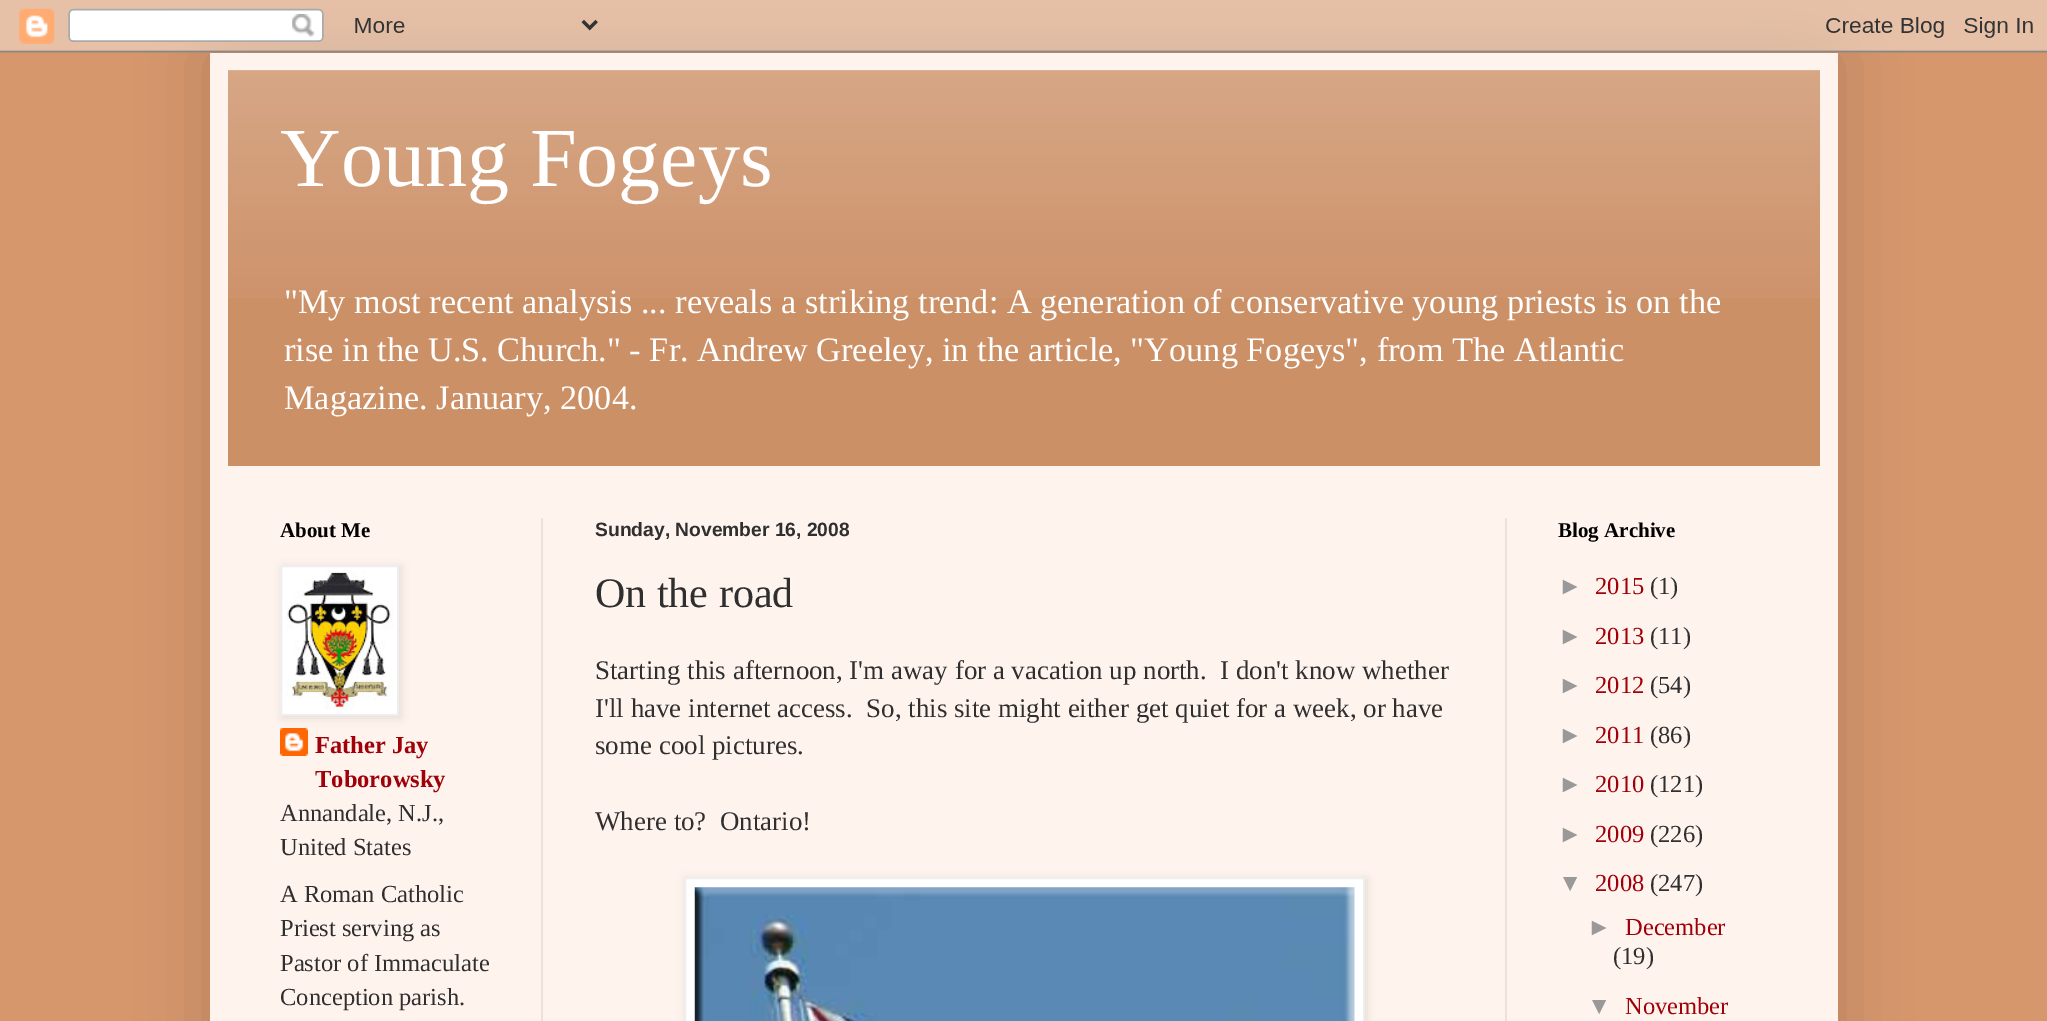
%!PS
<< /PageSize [2047 1021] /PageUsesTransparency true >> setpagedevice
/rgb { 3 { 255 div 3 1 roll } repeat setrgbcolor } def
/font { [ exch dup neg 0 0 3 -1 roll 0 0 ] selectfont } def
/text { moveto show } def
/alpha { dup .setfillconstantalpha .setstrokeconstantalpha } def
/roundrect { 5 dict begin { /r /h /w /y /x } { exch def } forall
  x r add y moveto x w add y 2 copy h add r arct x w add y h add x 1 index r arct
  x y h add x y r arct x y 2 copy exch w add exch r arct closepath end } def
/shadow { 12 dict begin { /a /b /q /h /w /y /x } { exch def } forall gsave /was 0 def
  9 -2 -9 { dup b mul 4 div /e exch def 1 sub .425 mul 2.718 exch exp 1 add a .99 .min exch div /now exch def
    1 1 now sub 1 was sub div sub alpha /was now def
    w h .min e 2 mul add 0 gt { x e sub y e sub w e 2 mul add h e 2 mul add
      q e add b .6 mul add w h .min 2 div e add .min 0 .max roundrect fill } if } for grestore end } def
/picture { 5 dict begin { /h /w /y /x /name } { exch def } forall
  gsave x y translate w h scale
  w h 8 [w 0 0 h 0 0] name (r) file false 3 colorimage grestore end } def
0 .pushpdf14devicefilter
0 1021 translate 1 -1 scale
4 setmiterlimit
214 151 108 rgb
0 0 2047 1021 rectfill
0 0 0 rgb
210 53 1628 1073 0 35 0.15 shadow
(img_01.rgb) 0 0 2047 53 picture
255 243 238 rgb
210 53 1628 968 rectfill
204 144 103 rgb
228 70 1592 396 rectfill
(img_02.rgb) 228 70 1592 228 picture
238 223 221 rgb
541 518 2 503 rectfill
1505 518 2 503 rectfill
(img_04.rgb) 280 728 28 28 picture
0 0 0 rgb
282 567 119 151 0 4.5 0.1 shadow
255 255 255 rgb
281 566 moveto 117 0 rlineto 0 149 rlineto -117 0 rlineto closepath gsave fill grestore
238 238 238 rgb
2 setlinewidth
stroke
(img_03.rgb) 285 570 109 139 picture
0 0 0 rgb
686 879 681 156 0 4.5 0.1 shadow
255 255 255 rgb
685 878 moveto 679 0 rlineto 0 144 rlineto -679 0 rlineto closepath gsave fill grestore
238 238 238 rgb
stroke
(img_05.rgb) 694 887 661 134 picture
/LiberationSerif-Regular 84 font
255 255 255 rgb
(Young Fogeys) 280 186 text
/LiberationSerif-Regular 34.3 font
("My most recent analysis ... reveals a striking trend: A generation of conservative young priests is on the) 284 313 text
(rise in the U.S. Church." - Fr. Andrew Greeley, in the article, "Young Fogeys", from The Atlantic) 284 361 text
(Magazine. January, 2004.) 284 409 text
/LiberationSerif-Bold 21 font
0 0 0 rgb
(About Me) 280 537 text
/LiberationSerif-Bold 24.5 font
160 0 7 rgb
(Father Jay) 315 753 text
(Toborowsky) 315 787 text
/LiberationSerif-Regular 24.5 font
47 47 47 rgb
(Annandale, N.J.,) 280 821 text
(United States) 280 855 text
(A Roman Catholic) 280 902 text
(Priest serving as) 280 936 text
(Pastor of Immaculate) 280 971 text
(Conception parish.) 280 1005 text
/LiberationSans-Bold 19.25 font
(Sunday, November 16, 2008) 595 536 text
/LiberationSerif-Regular 42 font
(On the road) 595 607 text
/LiberationSerif-Regular 26.95 font
(Starting this afternoon, I'm away for a vacation up north.  I don't know whether) 595 679 text
(I'll have internet access.  So, this site might either get quiet for a week, or have) 595 717 text
(some cool pictures.) 595 754 text
(Where to?  Ontario!) 595 830 text
/LiberationSerif-Bold 21 font
0 0 0 rgb
(Blog Archive) 1558 537 text
/LiberationSans-Regular 24.5 font
153 153 153 rgb
(►) 1558 594 text
/LiberationSerif-Regular 24.5 font
160 0 7 rgb
(2015) 1595 594 text
47 47 47 rgb
(\(1\)) 1650 594 text
/LiberationSans-Regular 24.5 font
153 153 153 rgb
(►) 1558 644 text
/LiberationSerif-Regular 24.5 font
160 0 7 rgb
(2013) 1595 644 text
47 47 47 rgb
(\(11\)) 1650 644 text
/LiberationSans-Regular 24.5 font
153 153 153 rgb
(►) 1558 693 text
/LiberationSerif-Regular 24.5 font
160 0 7 rgb
(2012) 1595 693 text
47 47 47 rgb
(\(54\)) 1650 693 text
/LiberationSans-Regular 24.5 font
153 153 153 rgb
(►) 1558 743 text
/LiberationSerif-Regular 24.5 font
160 0 7 rgb
(2011) 1595 743 text
47 47 47 rgb
(\(86\)) 1650 743 text
/LiberationSans-Regular 24.5 font
153 153 153 rgb
(►) 1558 792 text
/LiberationSerif-Regular 24.5 font
160 0 7 rgb
(2010) 1595 792 text
47 47 47 rgb
(\(121\)) 1650 792 text
/LiberationSans-Regular 24.5 font
153 153 153 rgb
(►) 1558 842 text
/LiberationSerif-Regular 24.5 font
160 0 7 rgb
(2009) 1595 842 text
47 47 47 rgb
(\(226\)) 1650 842 text
/LiberationSans-Regular 24.5 font
153 153 153 rgb
(▼) 1558 891 text
/LiberationSerif-Regular 24.5 font
160 0 7 rgb
(2008) 1595 891 text
47 47 47 rgb
(\(247\)) 1650 891 text
/LiberationSans-Regular 24.5 font
153 153 153 rgb
(►) 1587 935 text
/LiberationSerif-Regular 24.5 font
160 0 7 rgb
(December) 1625 935 text
47 47 47 rgb
(\(19\)) 1613 964 text
/LiberationSans-Regular 24.5 font
153 153 153 rgb
(▼) 1587 1014 text
/LiberationSerif-Regular 24.5 font
160 0 7 rgb
(November) 1625 1014 text
.poppdf14devicefilter showpage
